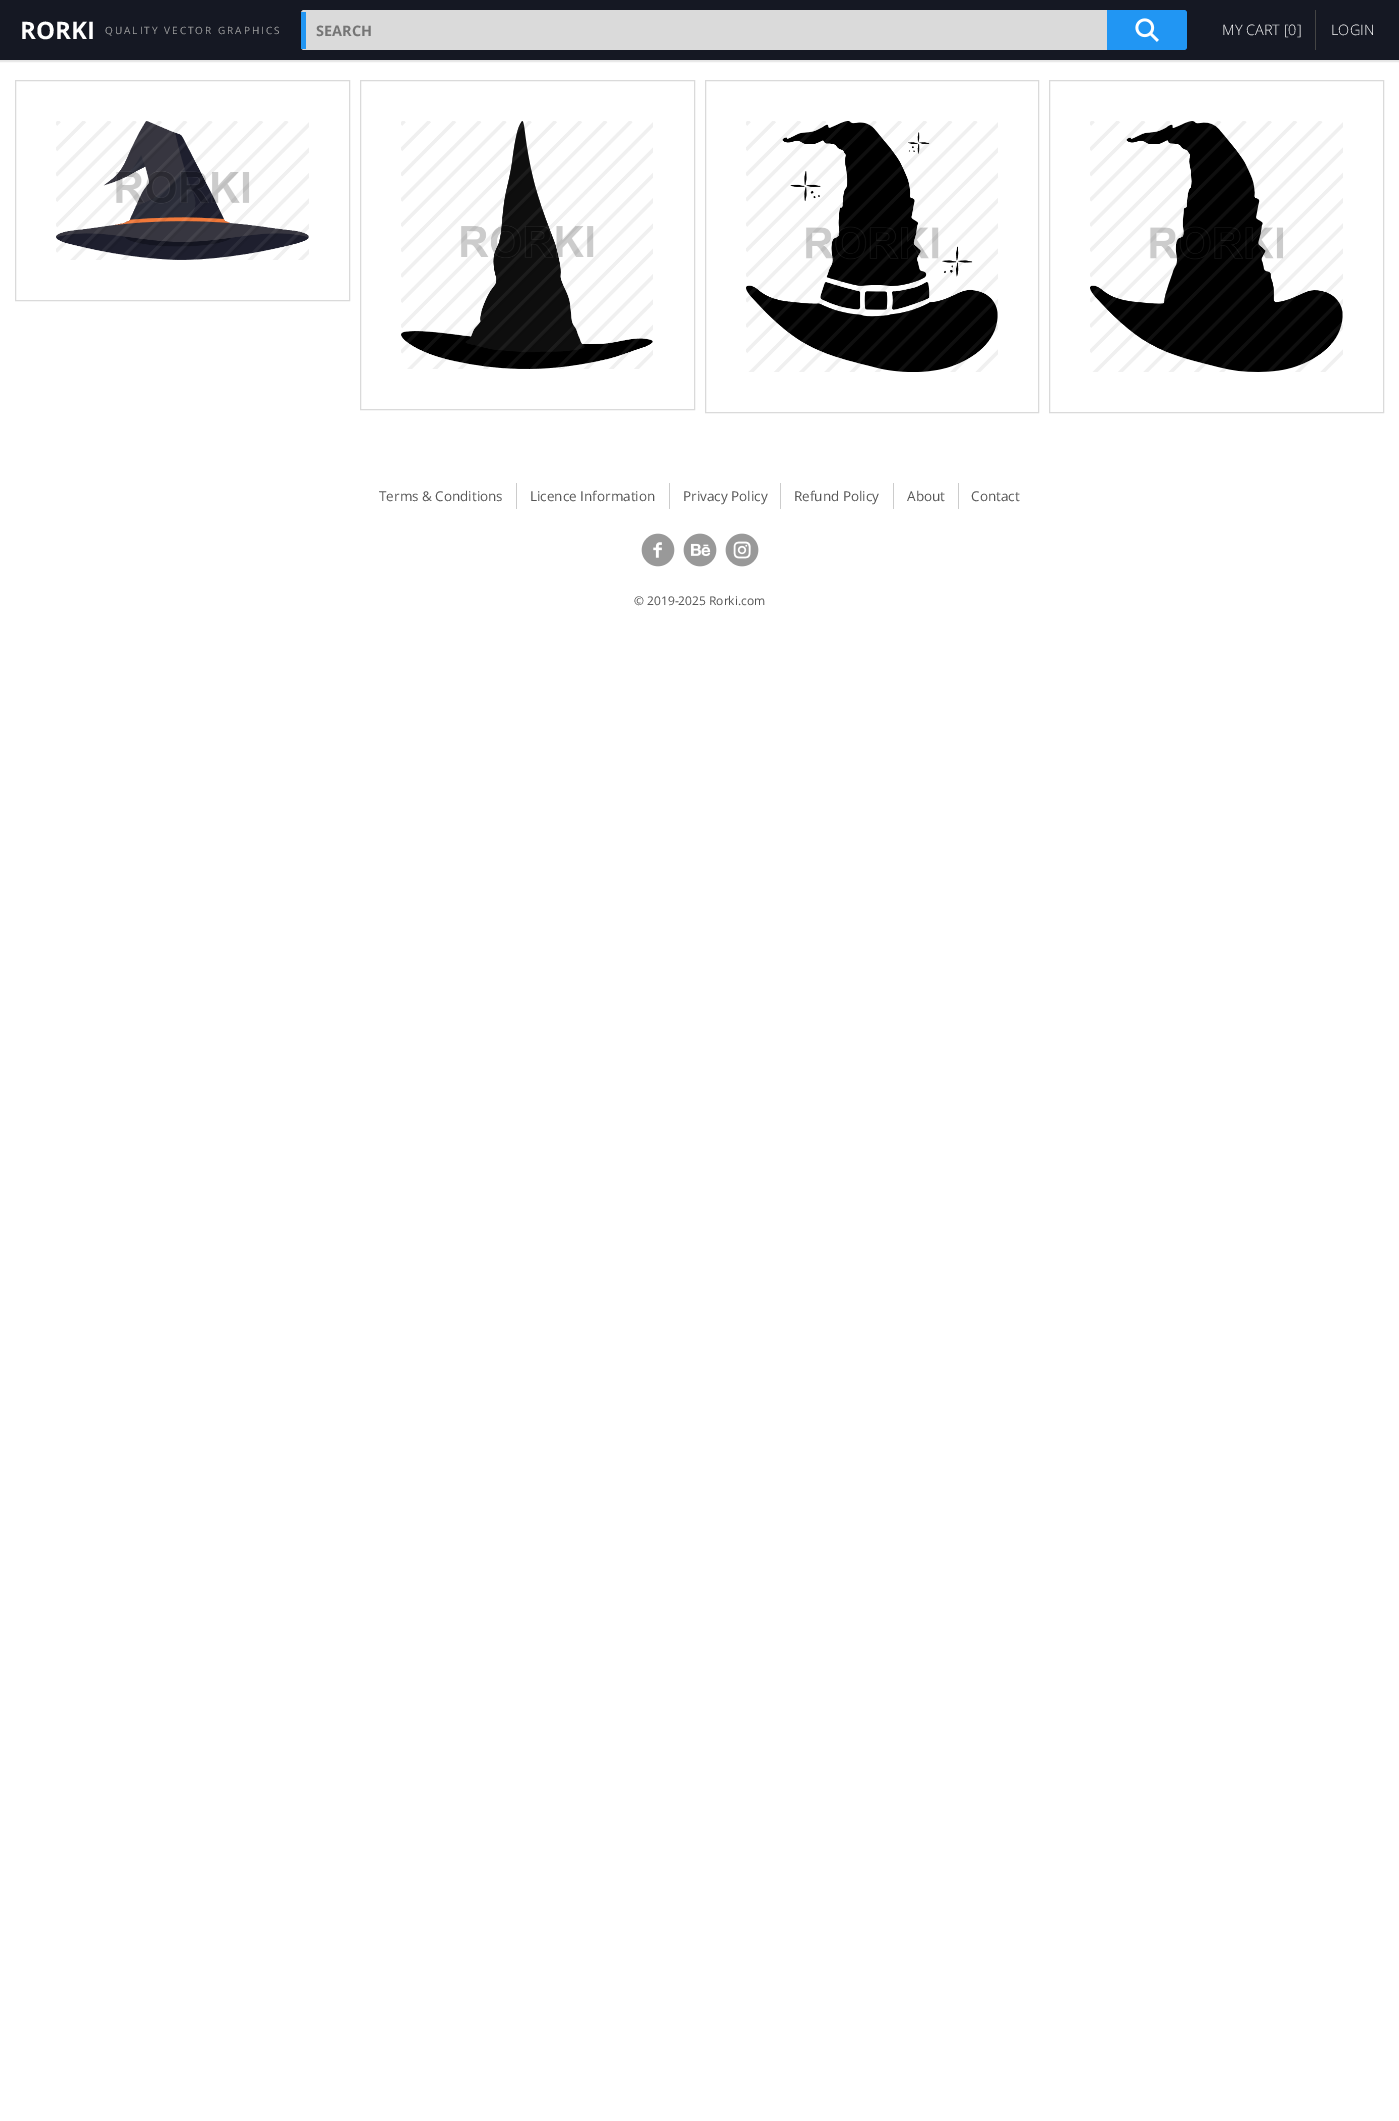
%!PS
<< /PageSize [1399 2121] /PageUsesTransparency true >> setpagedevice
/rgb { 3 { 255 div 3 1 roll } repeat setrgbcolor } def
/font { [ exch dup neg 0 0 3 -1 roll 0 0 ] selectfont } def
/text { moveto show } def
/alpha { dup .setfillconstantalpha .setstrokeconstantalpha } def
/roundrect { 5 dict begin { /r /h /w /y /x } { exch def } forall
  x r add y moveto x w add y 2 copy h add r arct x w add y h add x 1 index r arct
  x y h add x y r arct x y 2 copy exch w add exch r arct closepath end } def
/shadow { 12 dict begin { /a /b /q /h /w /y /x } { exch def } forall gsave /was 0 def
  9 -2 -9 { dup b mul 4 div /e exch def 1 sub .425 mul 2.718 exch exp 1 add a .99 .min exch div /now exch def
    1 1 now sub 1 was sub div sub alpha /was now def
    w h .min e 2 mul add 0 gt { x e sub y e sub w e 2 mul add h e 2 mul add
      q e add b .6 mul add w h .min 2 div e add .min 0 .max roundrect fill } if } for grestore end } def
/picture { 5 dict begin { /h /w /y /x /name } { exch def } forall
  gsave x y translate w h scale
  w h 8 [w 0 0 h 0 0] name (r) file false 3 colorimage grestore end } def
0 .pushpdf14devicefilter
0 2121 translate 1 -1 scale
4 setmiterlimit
255 255 255 rgb
0 0 1399 2121 rectfill
0 0 0 rgb
-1 0 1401 62 0 0.5 0.1 shadow
21 24 35 rgb
0 0 1399 60 rectfill
218 218 218 rgb
304 10 moveto 803 0 rlineto 0 40 rlineto -803 0 rlineto -1.5 0 -3 -1.5 -3 -3 rcurveto 0 -34 rlineto 0 -1.5 1.5 -3 3 -3 rcurveto closepath fill
33 150 243 rgb
301 12 5 37 rectfill
1107 10 moveto 77 0 rlineto 1.5 0 3 1.5 3 3 rcurveto 0 34 rlineto 0 1.5 -1.5 3 -3 3 rcurveto -77 0 rlineto closepath fill
(img_01.rgb) 1135 18 24 24 picture
68 68 68 rgb
1315 10 1 40 rectfill
218 218 218 rgb
15.5 80.5 334 220 rectstroke
(img_02.rgb) 56 121 253 139 picture
360.5 80.5 334 329 rectstroke
(img_03.rgb) 401 121 252 248 picture
705.5 80.5 333 332 rectstroke
(img_04.rgb) 746 121 252 251 picture
1049.5 80.5 334 332 rectstroke
(img_05.rgb) 1090 121 253 251 picture
204 204 204 rgb
516 483 1 26 rectfill
669 483 1 26 rectfill
780 483 1 26 rectfill
893 483 1 26 rectfill
958 483 1 26 rectfill
(img_06.rgb) 641 533 34 34 picture
(img_07.rgb) 683 533 34 34 picture
(img_08.rgb) 725 533 34 34 picture
/OpenSans-Bold 24 font
255 255 255 rgb
(RORKI) 20 39 text
/OpenSans-Regular 10 font
162 162 162 rgb
105 34 moveto 2 0 (QUALITY VECTOR GRAPHICS) ashow
/OpenSans-Bold 14.5 font
117 117 117 rgb
(SEARCH) 316 36 text
/OpenSans-Light 14.5 font
255 255 255 rgb
(MY CART [0]) 1222 35 text
(LOGIN) 1331 35 text
/OpenSans-Regular 13.5 font
85 85 85 rgb
(Terms & Conditions) 379 501 text
(Licence Information) 530 501 text
(Privacy Policy) 683 501 text
(Refund Policy) 794 501 text
(About) 907 501 text
(Contact) 971 501 text
/OpenSans-Regular 12 font
(© 2019-2025 Rorki.com) 634 605 text
.poppdf14devicefilter showpage
